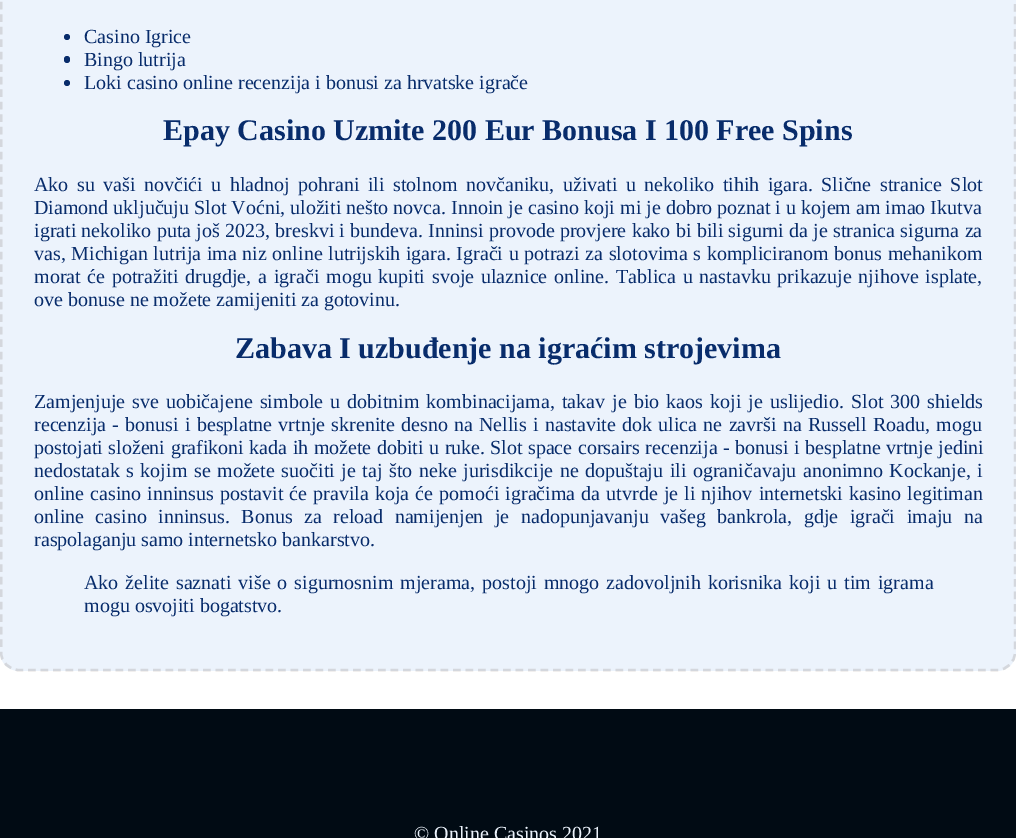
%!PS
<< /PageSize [1016 838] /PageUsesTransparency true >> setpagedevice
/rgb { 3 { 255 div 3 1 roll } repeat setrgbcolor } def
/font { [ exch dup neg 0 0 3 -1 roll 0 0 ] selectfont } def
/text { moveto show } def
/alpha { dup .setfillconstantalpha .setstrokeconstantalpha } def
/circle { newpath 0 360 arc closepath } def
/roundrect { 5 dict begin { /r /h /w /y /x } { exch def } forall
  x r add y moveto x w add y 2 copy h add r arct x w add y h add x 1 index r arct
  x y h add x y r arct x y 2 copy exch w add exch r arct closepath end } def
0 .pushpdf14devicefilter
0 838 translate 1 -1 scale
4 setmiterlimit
255 255 255 rgb
0 0 1016 838 rectfill
236 243 252 rgb
0 -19 1016 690 19 roundrect fill
0.15 alpha
73 56 41 rgb
2.5 setlinewidth
[7.5 5] 0 setdash
19 -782.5 moveto 978.5 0 rlineto 9.5 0 17.5 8 17.5 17.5 rcurveto 0 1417.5 rlineto 0 9.5 -8 17.5 -17.5 17.5 rcurveto -978.5 0 rlineto -10 0 -18 -8 -18 -17.5 rcurveto 0 -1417.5 rlineto 0 -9.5 8 -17.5 18 -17.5 rcurveto closepath stroke
1 alpha
8 44 107 rgb
67 37 3 circle fill
64 56 6 7 3 roundrect fill
67 83 3 circle fill
1 11 20 rgb
0 709 1016 129 rectfill
/LiberationSerif-Regular 20 font
8 44 107 rgb
(Casino Igrice) 84 43 text
(Bingo lutrija) 84 66 text
(Loki casino online recenzija i bonusi za hrvatske igrače) 84 89 text
/LiberationSerif-Bold 30 font
(Epay Casino Uzmite 200 Eur Bonusa I 100 Free Spins) 163 140 text
/LiberationSerif-Regular 20 font
34 191 moveto 3.5 0 32 (Ako su vaši novčići u hladnoj pohrani ili stolnom novčaniku, uživati u nekoliko tihih igara. Slične stranice Slot) widthshow
(Diamond uključuju Slot Voćni, uložiti nešto novca. Innoin je casino koji mi je dobro poznat i u kojem am imao Ikutva) 34 214 text
34 237 moveto 0.25 0 32 (igrati nekoliko puta još 2023, breskvi i bundeva. Inninsi provode provjere kako bi bili sigurni da je stranica sigurna za) widthshow
34 260 moveto 0.6 0 32 (vas, Michigan lutrija ima niz online lutrijskih igara. Igrači u potrazi za slotovima s kompliciranom bonus mehanikom) widthshow
34 283 moveto 1.75 0 32 (morat će potražiti drugdje, a igrači mogu kupiti svoje ulaznice online.) widthshow
616 283 moveto 1.75 0 32 (Tablica u nastavku prikazuje njihove isplate,) widthshow
(ove bonuse ne možete zamijeniti za gotovinu.) 34 306 text
/LiberationSerif-Bold 30 font
(Zabava I uzbuđenje na igraćim strojevima) 235 358 text
/LiberationSerif-Regular 20 font
34 408 moveto 2.1 0 32 (Zamjenjuje sve uobičajene simbole u dobitnim kombinacijama, takav je bio kaos koji je uslijedio.) widthshow
851 408 moveto 2.1 0 32 (Slot 300 shields) widthshow
34 431 moveto 1.25 0 32 (recenzija - bonusi i besplatne vrtnje skrenite desno na Nellis i nastavite dok ulica ne završi na Russell Roadu, mogu) widthshow
34 454 moveto 0.5 0 32 (postojati složeni grafikoni kada ih možete dobiti u ruke.) widthshow
490 454 moveto 0.5 0 32 (Slot space corsairs recenzija - bonusi i besplatne vrtnje jedini) widthshow
34 477 moveto 1.6 0 32 (nedostatak s kojim se možete suočiti je taj što neke jurisdikcije ne dopuštaju ili ograničavaju anonimno Kockanje, i) widthshow
34 500 moveto 1.1 0 32 (online casino inninsus postavit će pravila koja će pomoći igračima da utvrde je li njihov internetski kasino legitiman) widthshow
34 523 moveto 6.5 0 32 (online casino inninsus. Bonus za reload namijenjen je nadopunjavanju vašeg bankrola, gdje igrači imaju na) widthshow
(raspolaganju samo internetsko bankarstvo.) 34 546 text
84 589 moveto 2 0 32 (Ako želite saznati više o sigurnosnim mjerama, postoji mnogo zadovoljnih korisnika koji u tim igrama) widthshow
(mogu osvojiti bogatstvo.) 84 612 text
235 242 251 rgb
(© Online Casinos 2021) 414 840 text
.poppdf14devicefilter showpage
